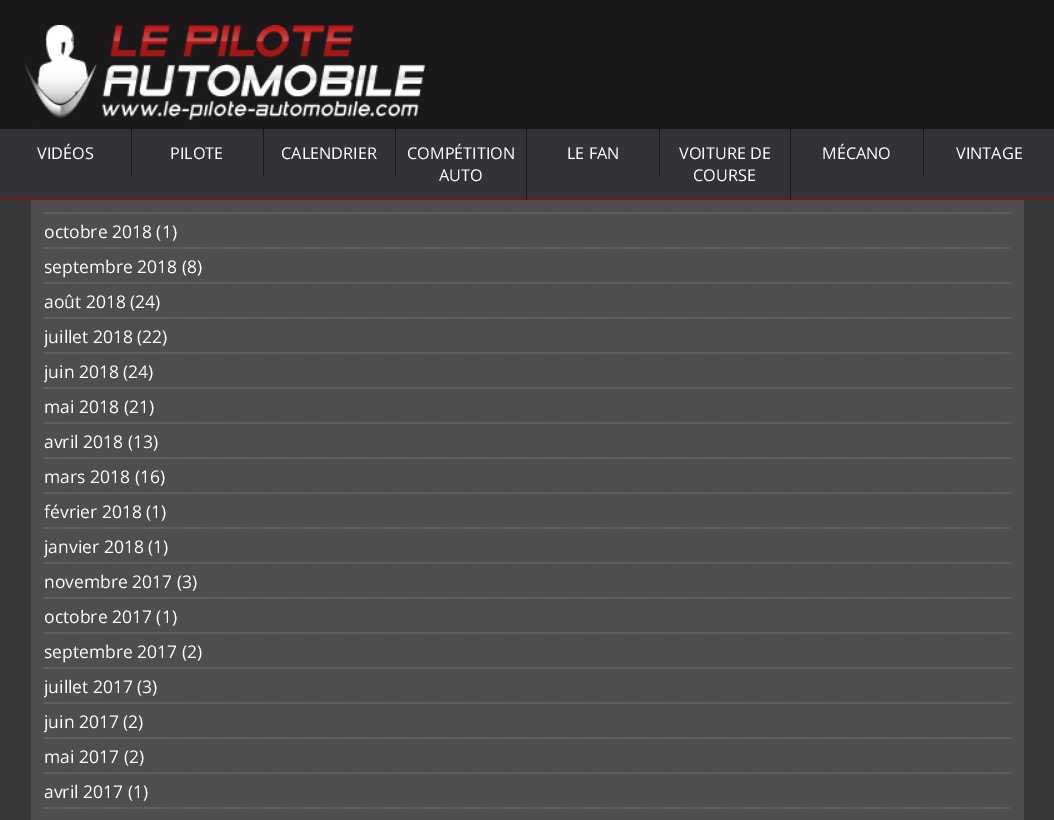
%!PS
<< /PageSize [1054 820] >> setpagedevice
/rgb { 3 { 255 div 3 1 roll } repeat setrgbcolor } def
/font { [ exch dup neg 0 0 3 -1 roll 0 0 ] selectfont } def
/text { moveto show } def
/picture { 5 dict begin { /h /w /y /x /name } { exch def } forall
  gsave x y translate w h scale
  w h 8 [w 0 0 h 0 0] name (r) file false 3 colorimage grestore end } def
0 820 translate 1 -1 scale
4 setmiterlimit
56 55 55 rgb
0 0 1054 820 rectfill
26 24 27 rgb
0 0 1054 129 rectfill
(img_01.rgb) 25 25 400 104 picture
51 50 56 rgb
0 129 1054 70 rectfill
170 2 0 rgb
0 199 1054 1 rectfill
26 24 27 rgb
131 129 1 47 rectfill
263 129 1 47 rectfill
395 129 1 47 rectfill
526 129 1 70 rectfill
659 129 1 47 rectfill
790 129 1 70 rectfill
923 129 1 47 rectfill
79 77 77 rgb
31 200 993 620 rectfill
123 122 122 rgb
1.2 setlinewidth
[1.25 1.25] 0 setdash
44 213 moveto 967 0 rlineto stroke
44 248 moveto 967 0 rlineto stroke
44 283 moveto 967 0 rlineto stroke
44 318 moveto 967 0 rlineto stroke
44 353 moveto 967 0 rlineto stroke
44 388 moveto 967 0 rlineto stroke
44 423 moveto 967 0 rlineto stroke
44 458 moveto 967 0 rlineto stroke
44 493 moveto 967 0 rlineto stroke
44 528 moveto 967 0 rlineto stroke
44 563 moveto 967 0 rlineto stroke
44 598 moveto 967 0 rlineto stroke
44 633 moveto 967 0 rlineto stroke
44 668 moveto 967 0 rlineto stroke
44 703 moveto 967 0 rlineto stroke
44 738 moveto 967 0 rlineto stroke
44 773 moveto 967 0 rlineto stroke
44 808 moveto 967 0 rlineto stroke
/OpenSans-Regular 16.25 font
255 255 255 rgb
(VIDÉOS) 37 159 text
(PILOTE) 170 159 text
(CALENDRIER) 281 159 text
(COMPÉTITION) 407 159 text
(AUTO) 439 181 text
(LE FAN) 567 159 text
(VOITURE DE) 679 159 text
(COURSE) 693 181 text
(MÉCANO) 822 159 text
(VINTAGE) 956 159 text
/OpenSans-Regular 17.5 font
(octobre 2018 \(1\)) 44 238 text
(septembre 2018 \(8\)) 44 273 text
(août 2018 \(24\)) 44 308 text
gsave
44 0 967 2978 rectclip
(juillet 2018) 44 343 text
grestore
(\(22\)) 137 343 text
gsave
44 0 967 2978 rectclip
(juin 2018) 44 378 text
grestore
(\(24\)) 123 378 text
(mai 2018 \(21\)) 44 413 text
(avril 2018 \(13\)) 44 448 text
(mars 2018 \(16\)) 44 483 text
(février 2018 \(1\)) 44 518 text
gsave
44 0 967 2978 rectclip
(janvier 2018) 44 553 text
grestore
(\(1\)) 148 553 text
(novembre 2017 \(3\)) 44 588 text
(octobre 2017 \(1\)) 44 623 text
(septembre 2017 \(2\)) 44 658 text
gsave
44 0 967 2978 rectclip
(juillet 2017) 44 693 text
grestore
(\(3\)) 137 693 text
gsave
44 0 967 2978 rectclip
(juin 2017) 44 728 text
grestore
(\(2\)) 123 728 text
(mai 2017 \(2\)) 44 763 text
(avril 2017 \(1\)) 44 798 text
showpage
